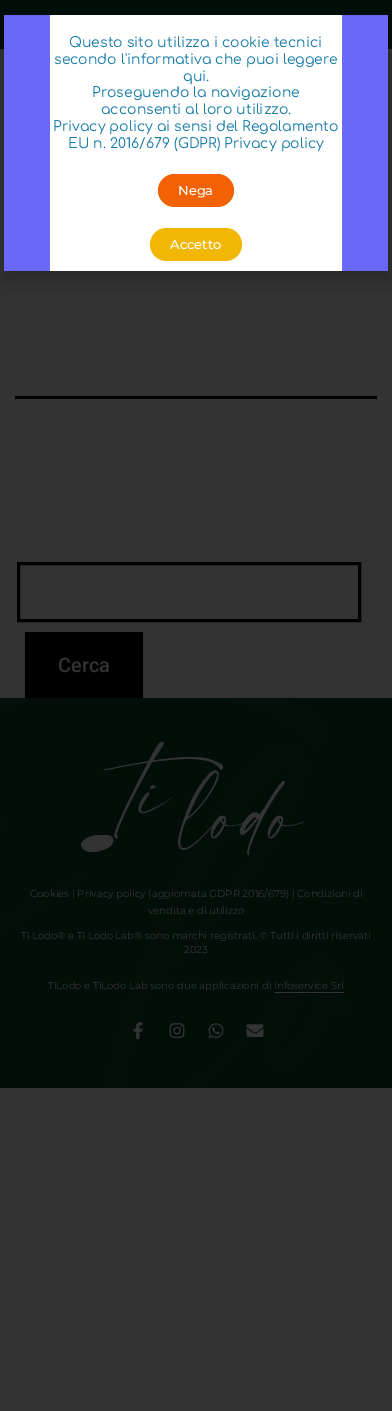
%!PS
<< /PageSize [392 1411] /PageUsesTransparency true >> setpagedevice
/rgb { 3 { 255 div 3 1 roll } repeat setrgbcolor } def
/font { [ exch dup neg 0 0 3 -1 roll 0 0 ] selectfont } def
/text { moveto show } def
/alpha { dup .setfillconstantalpha .setstrokeconstantalpha } def
/roundrect { 5 dict begin { /r /h /w /y /x } { exch def } forall
  x r add y moveto x w add y 2 copy h add r arct x w add y h add x 1 index r arct
  x y h add x y r arct x y 2 copy exch w add exch r arct closepath end } def
/shadow { 12 dict begin { /a /b /q /h /w /y /x } { exch def } forall gsave /was 0 def
  9 -2 -9 { dup b mul 4 div /e exch def 1 sub .425 mul 2.718 exch exp 1 add a .99 .min exch div /now exch def
    1 1 now sub 1 was sub div sub alpha /was now def
    w h .min e 2 mul add 0 gt { x e sub y e sub w e 2 mul add h e 2 mul add
      q e add b .6 mul add w h .min 2 div e add .min 0 .max roundrect fill } if } for grestore end } def
/picture { 5 dict begin { /h /w /y /x /name } { exch def } forall
  gsave x y translate w h scale
  w h 8 [w 0 0 h 0 0] name (r) file false 3 colorimage grestore end } def
0 .pushpdf14devicefilter
0 1411 translate 1 -1 scale
4 setmiterlimit
51 51 51 rgb
0 0 392 1411 rectfill
2 14 8 rgb
0 0 392 49 rectfill
0 0 0 rgb
3 20 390 262 0 11.5 0.2 shadow
106 104 246 rgb
4 15 384 256 rectfill
255 255 255 rgb
50 15 292 256 rectfill
242 98 5 rgb
158 174 76 33 16.5 roundrect fill
242 183 5 rgb
150 228 92 33 16.5 roundrect fill
0 0 0 rgb
15 396 362 3 rectfill
3 setlinewidth
18.5 563.5 341 57 rectstroke
25 632 118 66 rectfill
2 14 8 rgb
0 698 392 390 rectfill
(img_01.rgb) 0 698 349 390 picture
(img_02.rgb) 81 741 223 115 picture
51 51 51 rgb
274 992 70 1 rectfill
(img_03.rgb) 133 1022 10 18 picture
(img_04.rgb) 169 1023 16 16 picture
(img_05.rgb) 208 1023 16 15 picture
(img_06.rgb) 246 1024 18 13 picture
/Comfortaa-Regular 14 font
20 122 166 rgb
(Questo sito utilizza i cookie tecnici) 69 47 text
(secondo l'informativa che puoi leggere) 54 64 text
(qui.) 183 81 text
(Proseguendo la navigazione) 92 97 text
(acconsenti al loro utilizzo.) 101 114 text
(Privacy policy ai sensi del Regolamento) 53 131 text
(EU n. 2016/679 \(GDPR\) Privacy policy) 68 148 text
/Montserrat-Medium 13 font
255 255 255 rgb
(Nega) 178 195 text
(Accetto) 170 249 text
/Roboto-Medium 20 font
51 51 51 rgb
(Cerca) 58 672 text
/Montserrat-Regular 10 font
(Cookies | Privacy policy \(aggiornata GDPR 2016/679\) | Condizioni di) 30 897 text
(vendita e di utilizzo) 148 914 text
(Ti Lodo® e Ti Lodo Lab® sono marchi registrati. © Tutti i diritti riservati) 21 939 text
(2023) 184 953 text
(TiLodo e TiLodo Lab sono due applicazioni di Infoservice Srl) 48 989 text
.poppdf14devicefilter showpage
